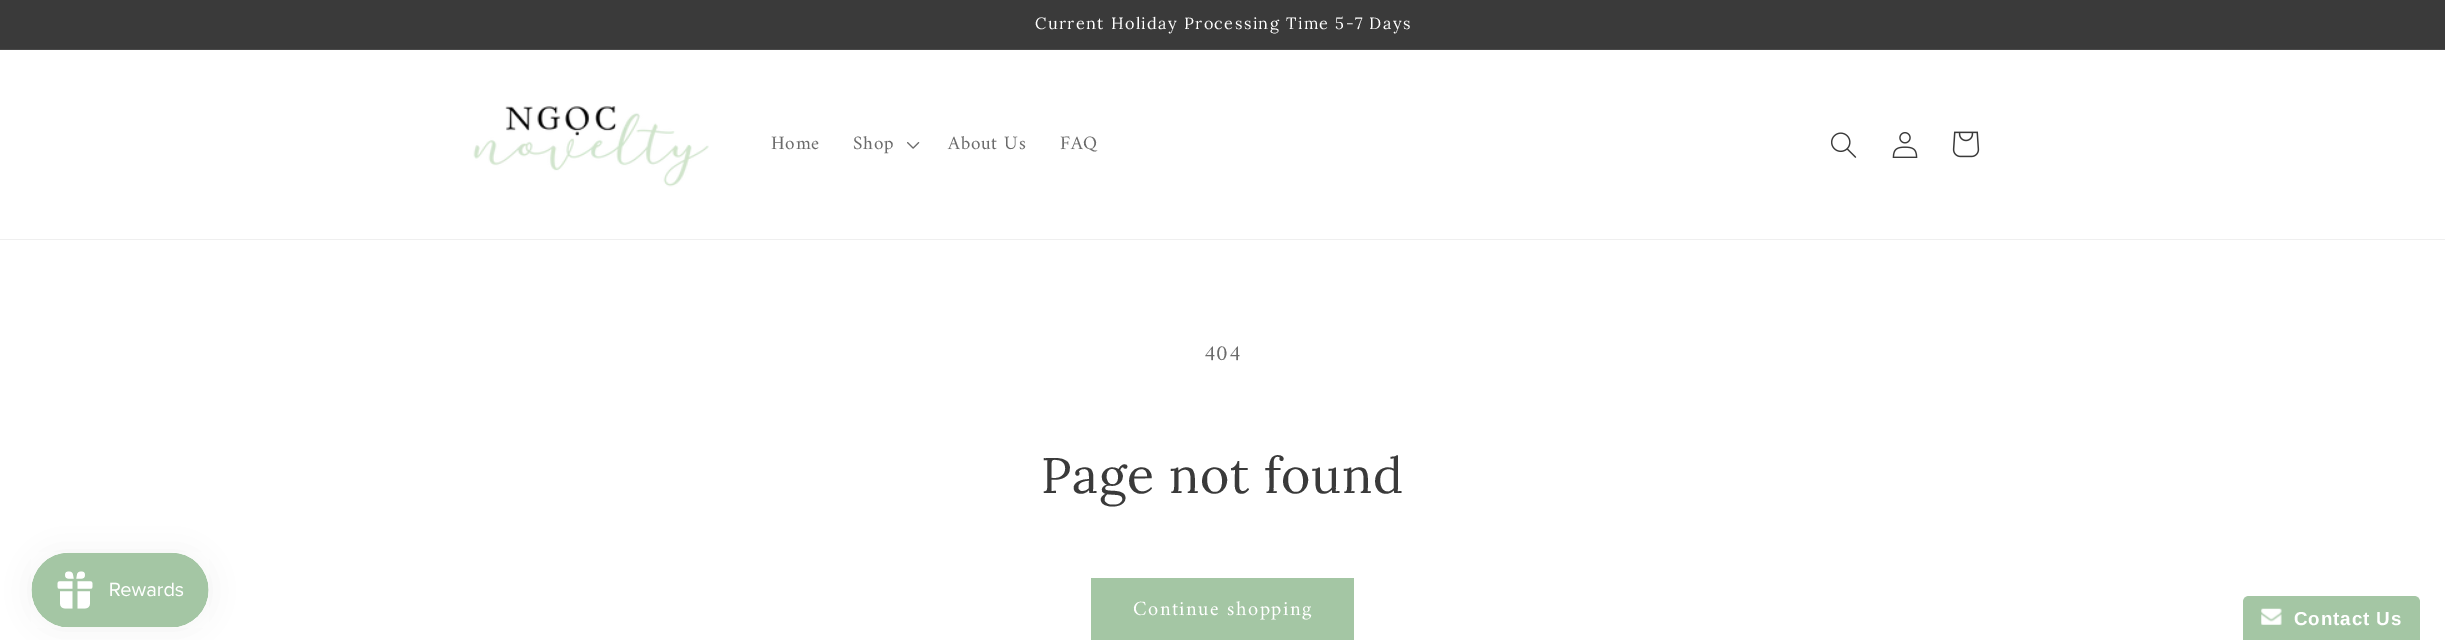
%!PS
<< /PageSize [2445 640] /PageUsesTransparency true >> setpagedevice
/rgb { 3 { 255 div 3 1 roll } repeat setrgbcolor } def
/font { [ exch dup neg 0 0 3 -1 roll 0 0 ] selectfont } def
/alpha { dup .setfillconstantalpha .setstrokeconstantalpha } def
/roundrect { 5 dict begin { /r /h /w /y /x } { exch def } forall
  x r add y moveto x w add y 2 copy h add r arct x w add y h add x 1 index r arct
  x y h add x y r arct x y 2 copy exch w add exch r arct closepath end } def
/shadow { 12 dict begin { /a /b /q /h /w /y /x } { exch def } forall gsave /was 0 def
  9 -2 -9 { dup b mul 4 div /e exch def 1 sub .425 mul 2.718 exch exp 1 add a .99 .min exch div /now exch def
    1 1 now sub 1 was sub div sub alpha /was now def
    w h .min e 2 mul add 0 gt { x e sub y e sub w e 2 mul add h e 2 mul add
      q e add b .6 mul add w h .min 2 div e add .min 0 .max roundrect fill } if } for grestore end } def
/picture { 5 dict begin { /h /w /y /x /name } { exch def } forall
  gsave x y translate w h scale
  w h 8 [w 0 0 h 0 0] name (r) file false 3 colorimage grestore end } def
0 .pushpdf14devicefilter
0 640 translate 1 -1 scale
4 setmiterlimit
255 255 255 rgb
0 0 2445 640 rectfill
58 58 58 rgb
0 0 2445 49 rectfill
74 74 74 rgb
0 49 2445 1 rectfill
239 239 239 rgb
0 239 2445 1 rectfill
(img_01.rgb) 473 106 236 81 picture
(img_02.rgb) 907 142 13 7 picture
(img_03.rgb) 1831 132 26 26 picture
(img_04.rgb) 1892 132 26 26 picture
(img_05.rgb) 1952 131 28 27 picture
0 0 0 rgb
31 553 178 75 37.5 15.5 0.05 shadow
(img_06.rgb) 31 552 178 76 picture
164 198 164 rgb
1091 578 263 62 rectfill
2249 596 moveto 165 0 rlineto 3.5 0 6 2.5 6 6 rcurveto 0 38 rlineto -177 0 rlineto 0 -38 rlineto 0 -3.5 2.5 -6 6 -6 rcurveto closepath fill
(img_07.rgb) 2261 608 21 17 picture
/Lora-Regular 16.25 font
255 255 255 rgb
1035 29 moveto 1.4 0 (Current Holiday Processing Time 5-7 Days) ashow
/Amiri-Regular 19.25 font
107 107 107 rgb
771 149 moveto 0.75 0 (Home) ashow
853 149 moveto 0.75 0 (Shop) ashow
948 149 moveto 0.75 0 (About Us) ashow
1060 149 moveto 0.75 0 (FAQ) ashow
/Amiri-Regular 22 font
1204 360 moveto 0.75 0 (404) ashow
/Lora-Regular 50 font
58 58 58 rgb
1041 493 moveto 0.75 0 (Page not found) ashow
/Amiri-Regular 20.6 font
255 255 255 rgb
1133 615 moveto 1.4 0 (Continue shopping) ashow
/LiberationSans-Bold 18.75 font
2294 625 moveto 0.9 0 (Contact Us) ashow
.poppdf14devicefilter showpage
